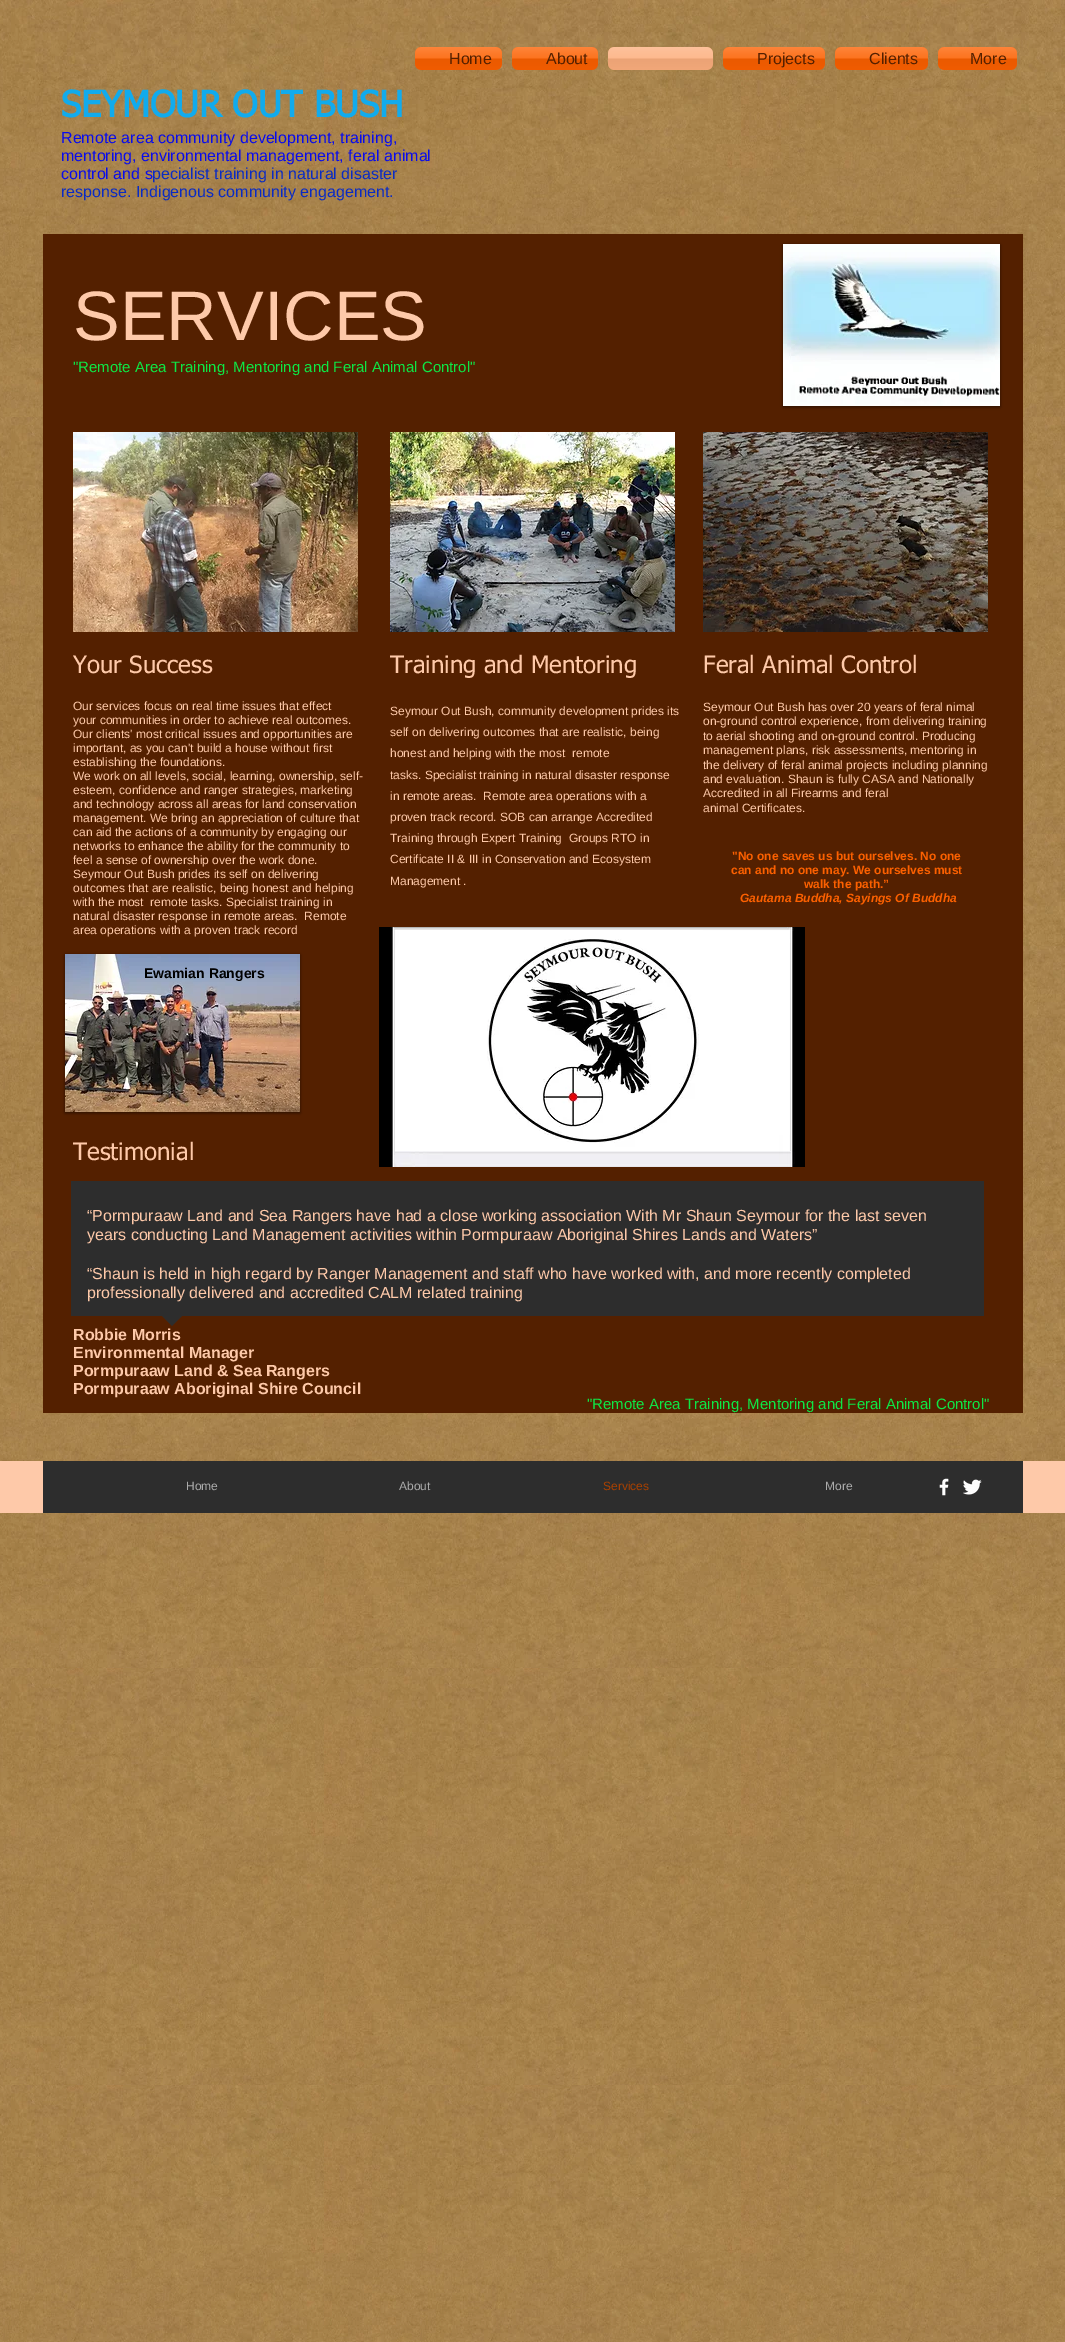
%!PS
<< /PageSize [1065 2342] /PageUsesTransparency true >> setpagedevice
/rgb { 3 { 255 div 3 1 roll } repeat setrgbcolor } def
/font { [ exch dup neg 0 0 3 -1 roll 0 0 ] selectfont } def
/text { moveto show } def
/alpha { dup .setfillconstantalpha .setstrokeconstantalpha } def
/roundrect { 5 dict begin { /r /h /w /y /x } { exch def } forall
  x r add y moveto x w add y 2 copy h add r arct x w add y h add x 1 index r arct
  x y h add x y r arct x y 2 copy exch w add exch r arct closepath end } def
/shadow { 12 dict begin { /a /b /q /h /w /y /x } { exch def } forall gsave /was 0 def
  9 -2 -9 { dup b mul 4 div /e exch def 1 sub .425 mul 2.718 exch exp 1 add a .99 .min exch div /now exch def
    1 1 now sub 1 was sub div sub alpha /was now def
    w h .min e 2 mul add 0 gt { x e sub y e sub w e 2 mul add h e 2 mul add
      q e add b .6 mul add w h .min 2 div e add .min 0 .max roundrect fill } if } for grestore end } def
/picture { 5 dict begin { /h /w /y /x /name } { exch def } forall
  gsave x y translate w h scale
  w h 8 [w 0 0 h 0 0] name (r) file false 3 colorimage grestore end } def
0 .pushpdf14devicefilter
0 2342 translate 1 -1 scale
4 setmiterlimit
255 255 255 rgb
0 0 1065 2342 rectfill
(img_01.rgb) 0 0 1065 2342 picture
252 96 0 rgb
415 47 87 23 6 roundrect fill
(img_02.rgb) 415 47 87 23 picture
512 47 86 23 6 roundrect fill
(img_03.rgb) 512 47 86 23 picture
253 175 126 rgb
608 47 105 23 6 roundrect fill
(img_04.rgb) 608 47 105 23 picture
252 96 0 rgb
723 47 102 23 6 roundrect fill
(img_05.rgb) 723 47 102 23 picture
835 47 93 23 6 roundrect fill
(img_06.rgb) 835 47 93 23 picture
938 47 79 23 6 roundrect fill
(img_07.rgb) 938 47 79 23 picture
84 32 0 rgb
43 234 980 1179 rectfill
0 0 0 rgb
783 245 217 162 0 1.5 0.5 shadow
(img_08.rgb) 783 244 217 162 picture
(img_09.rgb) 73 432 285 200 picture
(img_10.rgb) 390 432 285 200 picture
(img_11.rgb) 703 432 285 200 picture
65 955 235 158 0 1.5 0.5 shadow
(img_12.rgb) 65 954 235 158 picture
(img_13.rgb) 379 927 426 240 picture
45 45 45 rgb
71 1181 913 135 rectfill
162 1316 moveto 20 0 rlineto -10 10 rlineto closepath fill
254 201 169 rgb
0 1461 1065 52 rectfill
45 45 45 rgb
43 1461 980 52 rectfill
(img_14.rgb) 939 1478 10 18 picture
(img_15.rgb) 963 1479 19 16 picture
/LiberationSans-Regular 16 font
84 32 0 rgb
(Home) 449 64 text
(About) 546 64 text
(Projects) 757 64 text
(Clients) 869 64 text
(More) 970 64 text
/tahoma-Bold 36 font
17 171 237 rgb
(SEYMOUR OUT BUSH) 61 117 text
/LiberationSans-Regular 16 font
9 12 236 rgb
(Remote area community development, training,) 61 143 text
(mentoring, environmental management, feral animal) 61 161 text
(control and s) 61 179 text
10 43 196 rgb
(pecialist training in natural disaster) 152 179 text
(response. Indigenous community engagement.) 61 197 text
/LiberationSans-Regular 70 font
254 201 169 rgb
(SERVICES) 73 340 text
/LiberationSans-Regular 15 font
13 231 69 rgb
("Remote Area Training, Mentoring and Feral Animal Control") 73 372 text
/tahoma-Regular 24 font
254 201 169 rgb
(Your Success) 73 673 text
/LiberationSans-Regular 12 font
(Our services focus on real time issues that effect) 73 710 text
(your communities in order to achieve real outcomes.) 73 724 text
(Our clients' most critical issues and opportunities are) 73 738 text
(important, as you can't build a house without first) 73 752 text
(establishing the foundations.) 73 766 text
(We work on all levels, social, learning, ownership, self-) 73 780 text
(esteem, confidence and ranger strategies, marketing) 73 794 text
(and technology across all areas for land conservation) 73 808 text
(management. We bring an appreciation of culture that) 73 822 text
(can aid the actions of a community by engaging our) 73 836 text
(networks to enhance the ability for the community to) 73 850 text
(feel a sense of ownership over the work done.) 73 864 text
(Seymour Out Bush prides its self on delivering) 73 878 text
(outcomes that are realistic, being honest and helping) 73 892 text
(with the most  remote tasks. Specialist training in) 73 906 text
(natural disaster response in remote areas.  Remote) 73 920 text
(area operations with a proven track record) 73 934 text
/tahoma-Regular 24 font
(Training and Mentoring) 390 673 text
/LiberationSans-Regular 12 font
(Seymour Out Bush, community development prides its) 390 715 text
(self on delivering outcomes that are realistic, being) 390 736 text
(honest and helping with the most  remote) 390 757 text
(tasks. Specialist training in natural disaster response) 390 779 text
(in remote areas.  Remote area operations with a) 390 800 text
(proven track record. SOB can arrange Accredited) 390 821 text
(Training through Expert Training  Groups RTO in) 390 842 text
(Certificate II & III in Conservation and Ecosystem) 390 863 text
(Management .) 390 885 text
/tahoma-Regular 24 font
(Feral Animal Control) 703 673 text
/LiberationSans-Regular 12 font
(Seymour Out Bush has over 20 years of feral nimal) 703 711 text
(on-ground control experience, from delivering training) 703 725 text
(to aerial shooting and on-ground control. Producing) 703 740 text
(management plans, risk assessments, mentoring in) 703 754 text
(the delivery of feral animal projects including planning) 703 769 text
(and evaluation. Shaun is fully CASA and Nationally) 703 783 text
(Accredited in all Firearms and feral) 703 797 text
(animal Certificates.) 703 812 text
/LiberationSans-Bold 12 font
252 96 0 rgb
("No one saves us but ourselves. No one) 732 860 text
(can and no one may. We ourselves must) 731 874 text
(walk the path.”) 804 888 text
/LiberationSans-BoldItalic 12 font
(Gautama Buddha, Sayings Of Buddha) 740 902 text
/LiberationSans-Bold 14 font
0 0 0 rgb
(Ewamian Rangers) 144 978 text
/tahoma-Regular 24 font
254 201 169 rgb
(Testimonial) 73 1160 text
/LiberationSans-Regular 16 font
(“Pormpuraaw Land and Sea Rangers have had a close working association With Mr Shaun Seymour for the last seven) 87 1221 text
(years conducting Land Management activities within Pormpuraaw Aboriginal Shires Lands and Waters”) 87 1240 text
(“Shaun is held in high regard by Ranger Management and staff who have worked with, and more recently completed) 87 1279 text
(professionally delivered and accredited CALM related training) 87 1298 text
/LiberationSans-Bold 16 font
(Robbie Morris) 73 1340 text
(Environmental Manager) 73 1358 text
(Pormpuraaw Land & Sea Rangers) 73 1376 text
(Pormpuraaw Aboriginal Shire Council) 73 1394 text
/LiberationSans-Regular 15 font
13 231 69 rgb
("Remote Area Training, Mentoring and Feral Animal Control") 587 1409 text
/LiberationSans-Regular 12 font
171 171 171 rgb
(Home) 186 1490 text
(About) 399 1490 text
168 64 0 rgb
(Services) 603 1490 text
171 171 171 rgb
(More) 825 1490 text
.poppdf14devicefilter showpage
